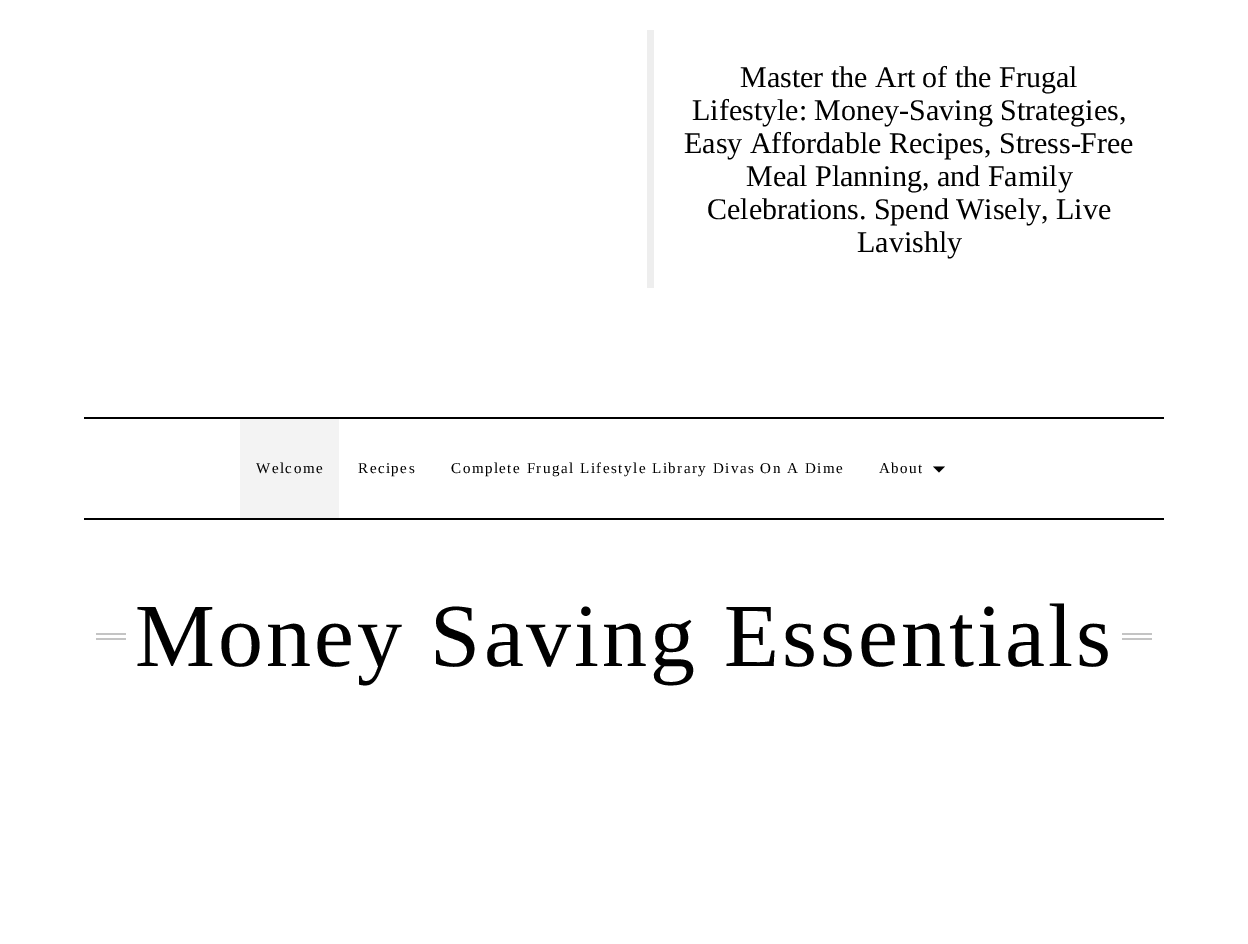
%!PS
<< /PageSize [1248 944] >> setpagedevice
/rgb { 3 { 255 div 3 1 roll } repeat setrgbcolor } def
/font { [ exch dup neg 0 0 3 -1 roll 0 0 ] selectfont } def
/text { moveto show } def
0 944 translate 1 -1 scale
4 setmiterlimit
255 255 255 rgb
0 0 1248 944 rectfill
238 238 238 rgb
647 30 7 258 rectfill
0 0 0 rgb
84 417 1080 2 rectfill
84 518 1080 2 rectfill
243 243 243 rgb
240 419 99 99 rectfill
0 0 0 rgb
933 466.5 moveto 12 0 rlineto -6 6 rlineto closepath fill
196 196 196 rgb
96 633 30 2 rectfill
96 638 30 2 rectfill
1122 633 30 2 rectfill
1122 638 30 2 rectfill
/LiberationSerif-Regular 30 font
0 0 0 rgb
(Master the Art of the Frugal) 740 87 text
(Lifestyle: Money-Saving Strategies,) 692 120 text
(Easy Affordable Recipes, Stress-Free) 684 153 text
(Meal Planning, and Family) 746 186 text
(Celebrations. Spend Wisely, Live) 707 219 text
(Lavishly) 857 252 text
/LiberationSerif-Regular 15 font
256 473 moveto 1.5 0 (Welcome) ashow
358 473 moveto 1.5 0 (Recipes) ashow
451 473 moveto 1.5 0 (Complete Frugal Lifestyle Library Divas On A Dime) ashow
879 473 moveto 1.5 0 (About) ashow
/LiberationSerif-Regular 90 font
135 666 moveto 3 0 (Money Saving Essentials) ashow
showpage
